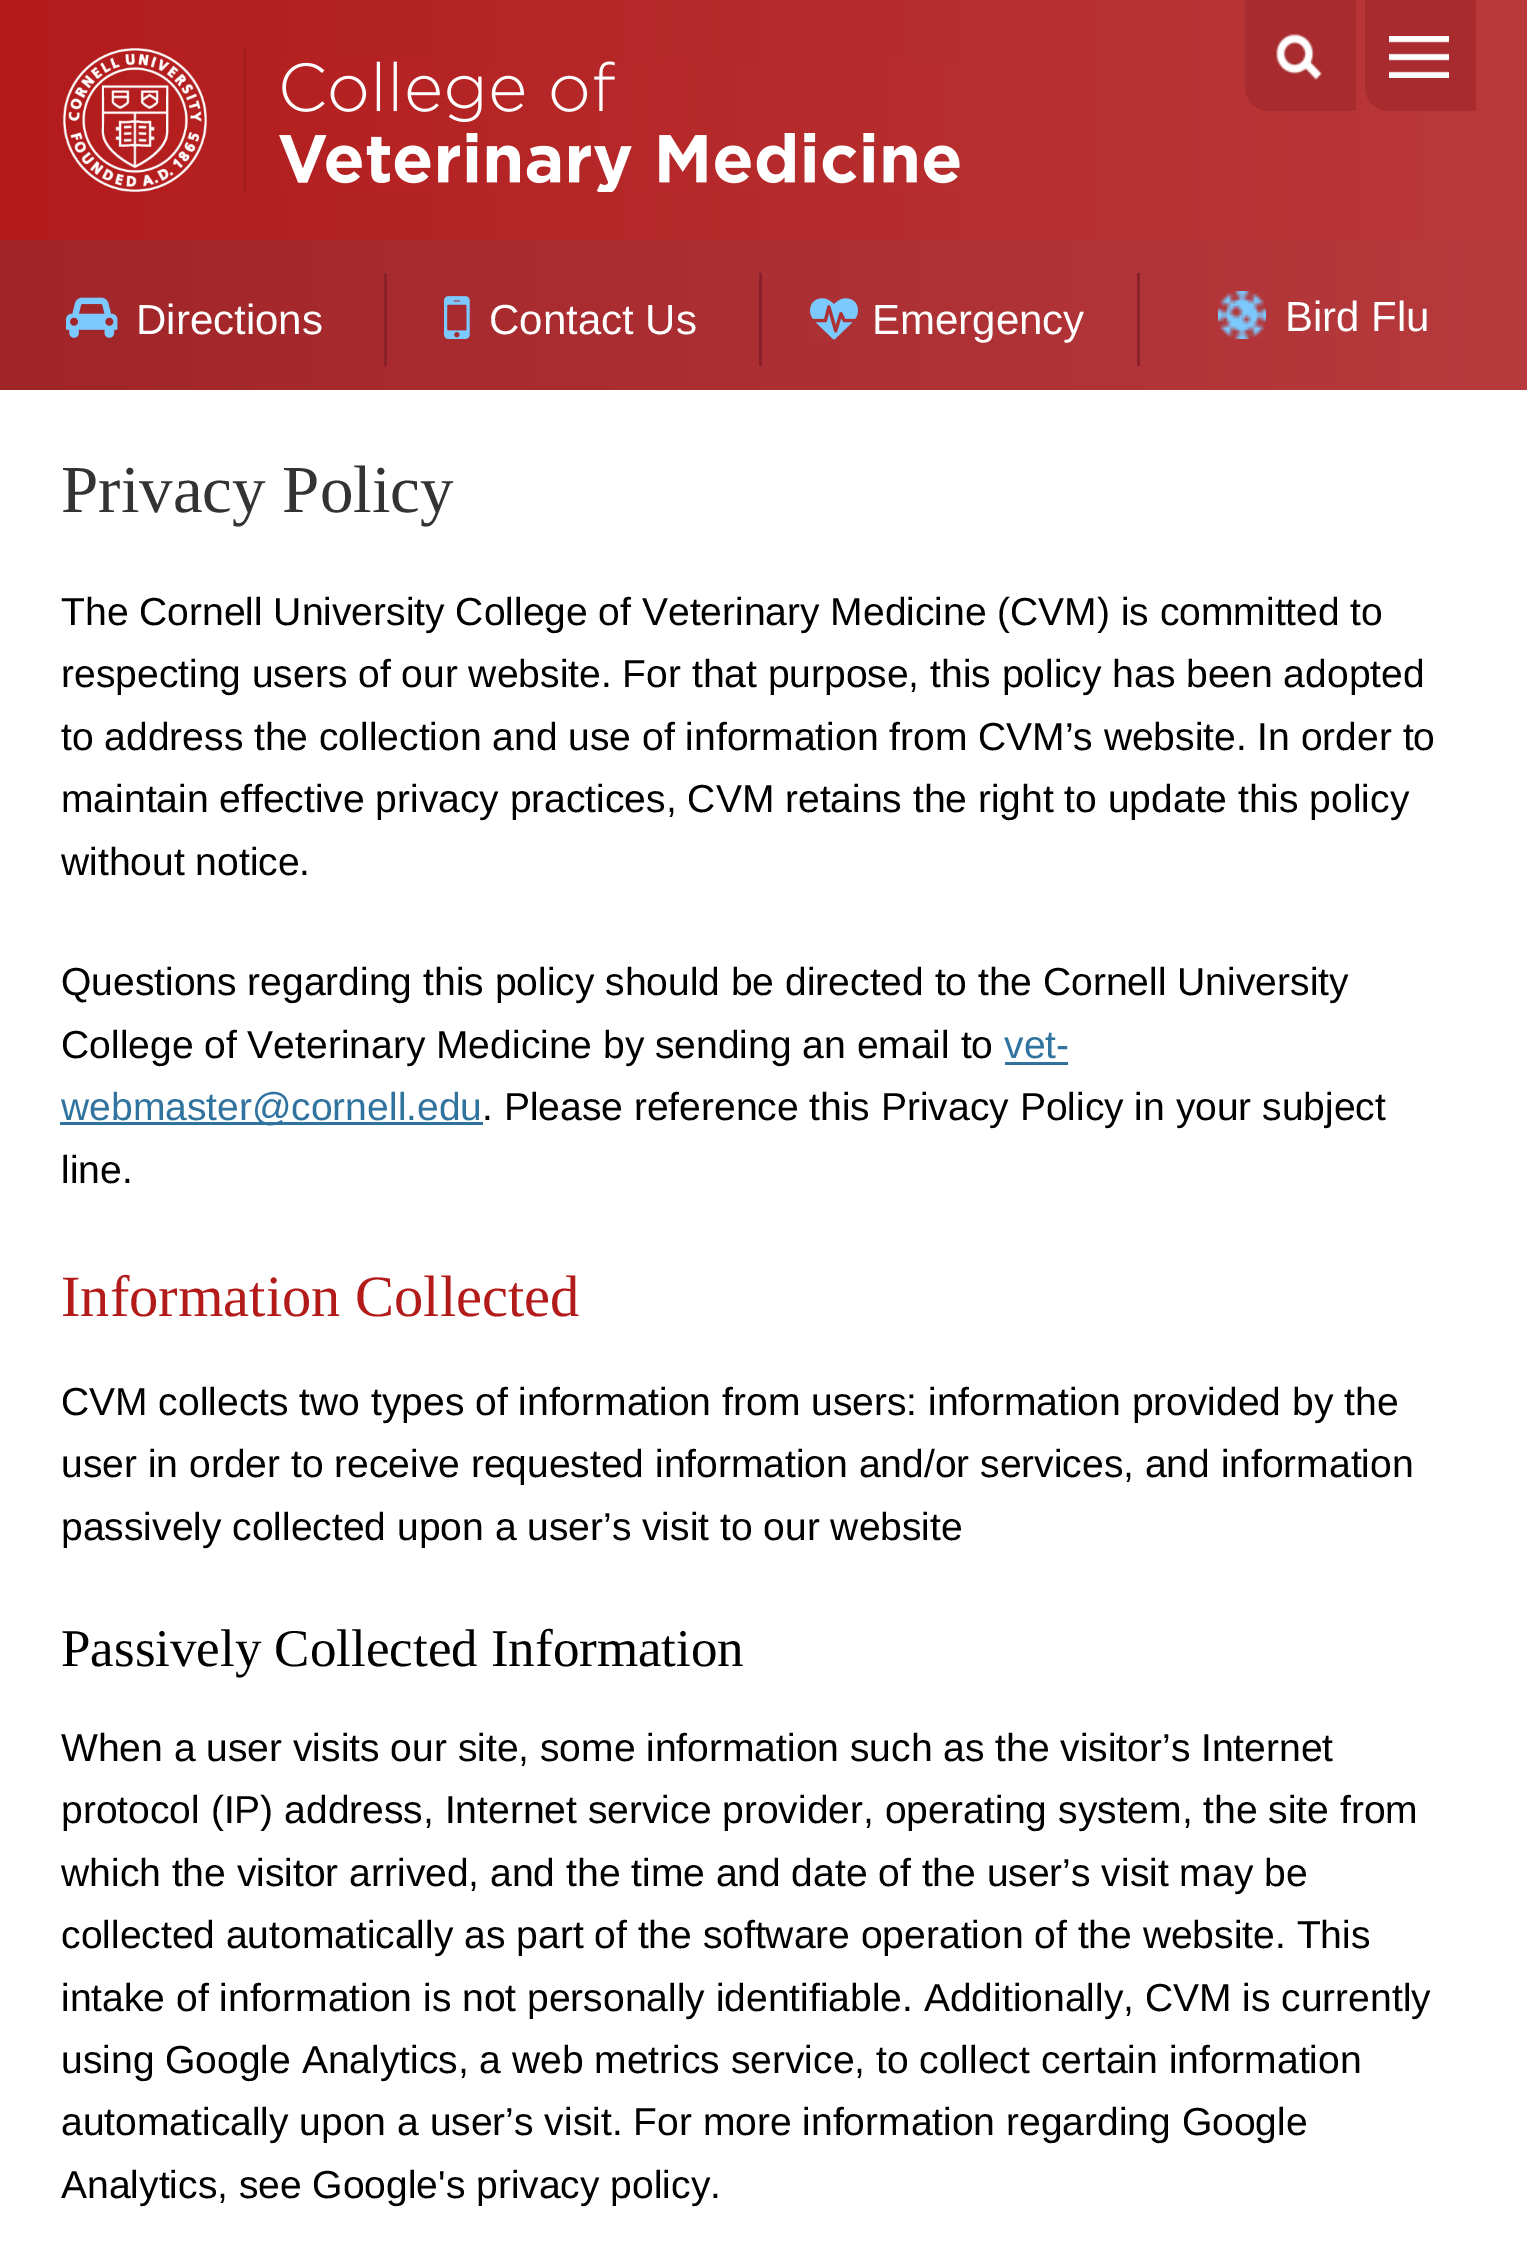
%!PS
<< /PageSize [1527 2257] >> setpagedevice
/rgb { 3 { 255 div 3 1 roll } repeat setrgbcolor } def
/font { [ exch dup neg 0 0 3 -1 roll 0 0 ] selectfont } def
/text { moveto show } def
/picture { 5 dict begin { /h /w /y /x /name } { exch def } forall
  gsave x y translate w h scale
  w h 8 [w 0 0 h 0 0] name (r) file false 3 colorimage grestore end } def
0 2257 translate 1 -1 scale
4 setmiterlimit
255 255 255 rgb
0 0 1527 2257 rectfill
gsave 0 240 moveto 1527 0 rlineto 0 150 rlineto -1527 0 rlineto closepath clip newpath
<< /ShadingType 2 /ColorSpace /DeviceRGB /Coords [0 195 1527 195] /Extend [true true] /Function << /FunctionType 2 /Domain [0 1] /C0 [0.627 0.145 0.161] /C1 [0.718 0.227 0.239] /N 1 >> >> shfill grestore
gsave 0 0 moveto 1527 0 rlineto 0 240 rlineto -1527 0 rlineto closepath clip newpath
<< /ShadingType 2 /ColorSpace /DeviceRGB /Coords [0 120 1527 120] /Extend [true true] /Function << /FunctionType 2 /Domain [0 1] /C0 [0.702 0.106 0.106] /C1 [0.725 0.224 0.231] /N 1 >> >> shfill grestore
(img_01.rgb) 63 48 144 144 picture
162 29 29 rgb
243 48 3 144 rectfill
(img_02.rgb) 279 61 681 131 picture
167 43 47 rgb
1245 0 moveto 111 0 rlineto 0 111 rlineto -87 0 rlineto -13.5 0 -24 -10.5 -24 -24 rcurveto closepath fill
(img_03.rgb) 1276 34 46 46 picture
1365 0 moveto 111 0 rlineto 0 111 rlineto -87 0 rlineto -13.5 0 -24 -10.5 -24 -24 rcurveto closepath fill
(img_04.rgb) 1389 36 60 42 picture
137 32 43 rgb
384 273 3 93 rectfill
(img_05.rgb) 66 297 52 41 picture
759 273 3 93 rectfill
(img_06.rgb) 444 296 26 43 picture
1137 273 3 93 rectfill
(img_07.rgb) 810 298 48 42 picture
(img_08.rgb) 1218 291 48 48 picture
47 115 158 rgb
1005 1062 63 3 rectfill
60 1122 423 3 rectfill
/LiberationSans-Regular 42 font
255 255 255 rgb
(Directions) 136 334 text
(Contact Us) 489 334 text
(Emergency) 872 334 text
(Bird Flu) 1285 331 text
/LiberationSerif-Regular 67 font
51 51 51 rgb
(Privacy Policy) 61 512 text
/LiberationSans-Regular 39 font
0 0 0 rgb
(The Cornell University College of Veterinary Medicine \(CVM\) is committed to) 61 625 text
(respecting users of our website. For that purpose, this policy has been adopted) 61 687 text
(to address the collection and use of information from CVM’s website. In order to) 61 750 text
(maintain effective privacy practices, CVM retains the right to update this policy) 61 812 text
(without notice.) 61 875 text
(Questions regarding this policy should be directed to the Cornell University) 61 995 text
(College of Veterinary Medicine by sending an email to) 61 1058 text
47 115 158 rgb
(vet-) 1004 1058 text
(webmaster@cornell.edu) 61 1120 text
0 0 0 rgb
(. Please reference this Privacy Policy in your subject) 482 1120 text
(line.) 61 1183 text
/LiberationSerif-Regular 58.5 font
179 27 27 rgb
(Information Collected) 61 1316 text
/LiberationSans-Regular 39 font
0 0 0 rgb
(CVM collects two types of information from users: information provided by the) 61 1415 text
(user in order to receive requested information and/or services, and information) 61 1477 text
(passively collected upon a user’s visit to our website) 61 1540 text
/LiberationSerif-Regular 53 font
(Passively Collected Information) 61 1666 text
/LiberationSans-Regular 39 font
(When a user visits our site, some information such as the visitor’s Internet) 61 1761 text
(protocol \(IP\) address, Internet service provider, operating system, the site from) 61 1823 text
(which the visitor arrived, and the time and date of the user’s visit may be) 61 1886 text
(collected automatically as part of the software operation of the website. This) 61 1948 text
(intake of information is not personally identifiable. Additionally, CVM is currently) 61 2011 text
(using Google Analytics, a web metrics service, to collect certain information) 61 2073 text
(automatically upon a user’s visit. For more information regarding Google) 61 2135 text
(Analytics, see Google's privacy policy.) 61 2198 text
showpage
